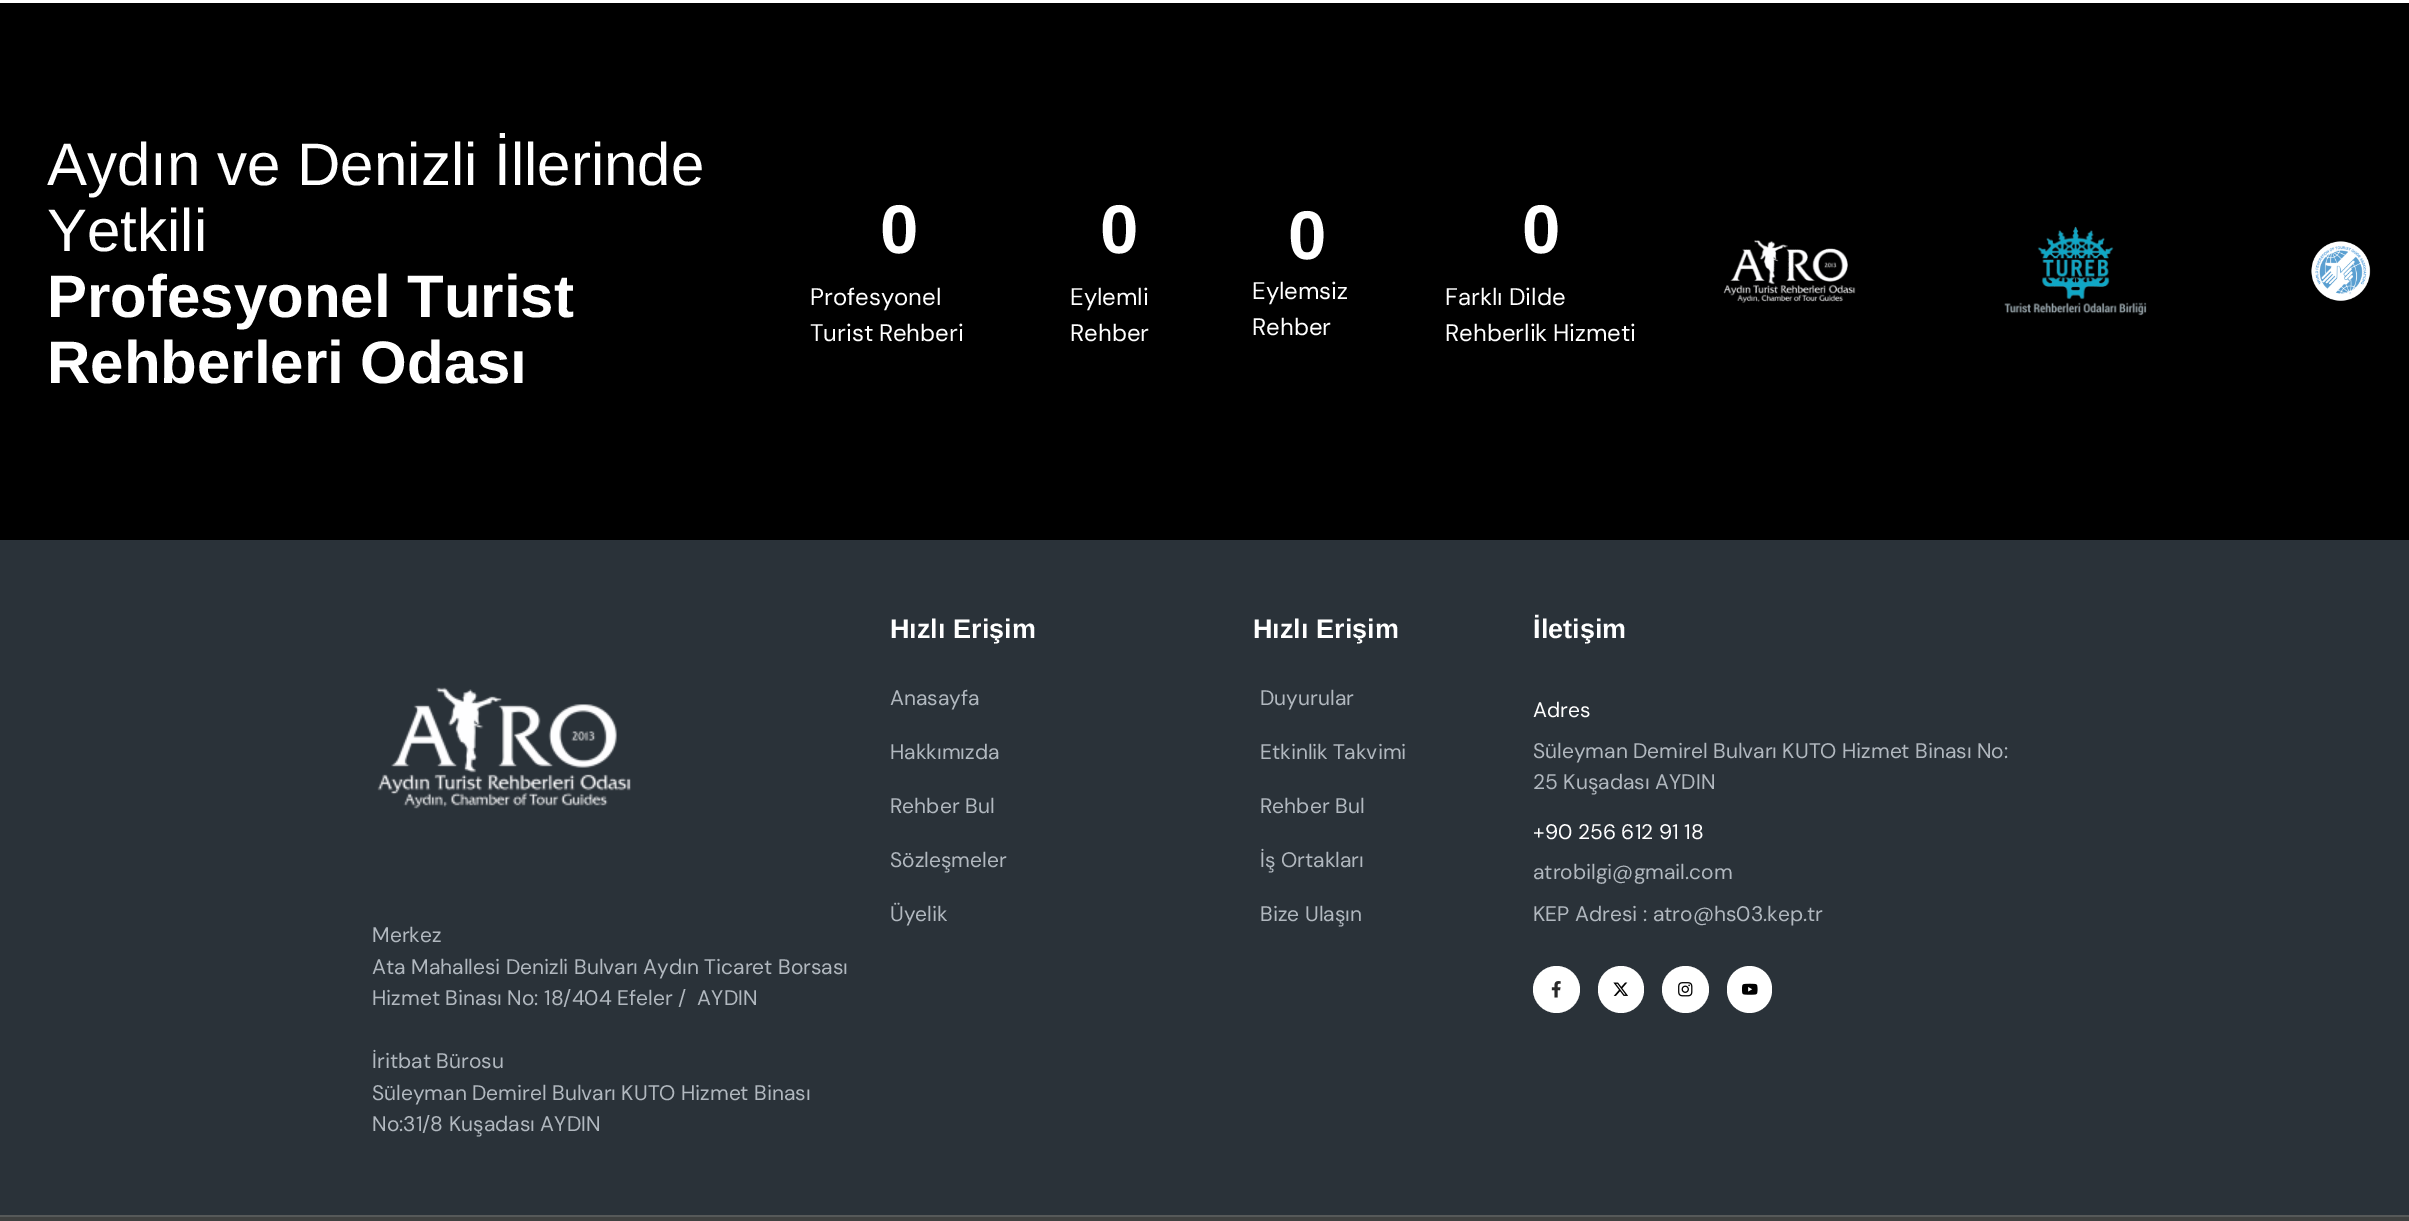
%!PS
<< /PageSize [2409 1221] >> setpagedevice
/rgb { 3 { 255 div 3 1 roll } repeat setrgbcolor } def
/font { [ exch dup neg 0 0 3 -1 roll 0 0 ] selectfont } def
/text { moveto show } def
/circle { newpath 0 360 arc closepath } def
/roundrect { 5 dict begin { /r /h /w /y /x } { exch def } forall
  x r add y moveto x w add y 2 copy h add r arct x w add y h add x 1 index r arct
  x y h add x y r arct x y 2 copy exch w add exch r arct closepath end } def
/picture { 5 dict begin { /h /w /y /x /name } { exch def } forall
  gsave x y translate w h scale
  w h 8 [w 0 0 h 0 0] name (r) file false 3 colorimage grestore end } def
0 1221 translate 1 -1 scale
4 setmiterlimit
255 255 255 rgb
0 0 2409 1221 rectfill
0 0 0 rgb
0 3 2409 537 rectfill
(img_01.rgb) 1723 240 133 63 picture
(img_02.rgb) 2004 226 143 90 picture
(img_03.rgb) 2311 241 60 60 picture
42 50 57 rgb
0 540 2409 675 rectfill
255 255 255 rgb
1556.5 989.5 23.5 circle fill
(img_04.rgb) 1551 981 10 17 picture
1598 966 46 47 23 roundrect fill
(img_05.rgb) 1613 982 15 14 picture
1685.5 989.5 23.5 circle fill
(img_06.rgb) 1678 982 15 15 picture
1727 966 45 47 22.5 roundrect fill
(img_07.rgb) 1742 983 16 12 picture
(img_08.rgb) 377 687 254 122 picture
63 65 64 rgb
0 1217 2409 4 rectfill
86 89 89 rgb
0 1215 2409 2 rectfill
/LiberationSans-Regular 60 font
255 255 255 rgb
(Aydın ve Denizli İllerinde) 47 185 text
(Yetkili) 47 251 text
/LiberationSans-Bold 60 font
(Profesyonel Turist) 47 317 text
(Rehberleri Odası) 47 383 text
/LiberationSans-Bold 69 font
(0) 880 253 text
/DMSans-Regular 24 font
(Profesyonel) 810 305 text
810 341 moveto -1 0 32 (Turist Rehberi) widthshow
/LiberationSans-Bold 69 font
(0) 1100 253 text
/DMSans-Regular 24 font
(Eylemli) 1070 305 text
(Rehber) 1070 341 text
/LiberationSans-Bold 69 font
(0) 1288 259 text
/DMSans-Regular 24 font
(Eylemsiz) 1252 299 text
(Rehber) 1252 335 text
/LiberationSans-Bold 69 font
(0) 1522 253 text
/DMSans-Regular 24 font
(Farklı Dilde) 1445 305 text
1445 341 moveto -1 0 32 (Rehberlik Hizmeti) widthshow
/LiberationSans-Bold 27 font
(Hızlı Erişim) 890 638 text
/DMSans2-Regular 21 font
177 184 191 rgb
(Anasayfa) 890 705 text
(Hakkımızda) 890 759 text
(Rehber Bul) 890 813 text
(Sözleşmeler) 890 867 text
(Üyelik) 890 921 text
/LiberationSans-Bold 27 font
255 255 255 rgb
(Hızlı Erişim) 1253 638 text
/DMSans2-Regular 21 font
177 184 191 rgb
(Duyurular) 1260 705 text
1260 759 moveto -1 0 32 (Etkinlik Takvimi) widthshow
(Rehber Bul) 1260 813 text
(İş Ortakları) 1260 867 text
(Bize Ulaşın) 1260 921 text
/LiberationSans-Bold 27 font
255 255 255 rgb
(İletişim) 1533 638 text
/DMSans2-Regular 21 font
(Adres) 1533 717 text
177 184 191 rgb
1533 758 moveto -0.25 0 32 (Süleyman Demirel Bulvarı KUTO Hizmet Binası No:) widthshow
(25 Kuşadası AYDIN) 1533 789 text
255 255 255 rgb
(+90 256 612 91 18) 1533 839 text
177 184 191 rgb
(atrobilgi@gmail.com) 1533 879 text
(KEP Adresi : atro@hs03.kep.tr) 1533 921 text
(Merkez) 372 942 text
372 974 moveto -0.25 0 32 (Ata Mahallesi Denizli Bulvarı Aydın Ticaret Borsası) widthshow
(Hizmet Binası No: 18/404 Efeler /  AYDIN) 372 1005 text
(İritbat Bürosu) 372 1068 text
372 1100 moveto -0.25 0 32 (Süleyman Demirel Bulvarı KUTO Hizmet Binası) widthshow
(No:31/8 Kuşadası AYDIN) 372 1131 text
showpage
